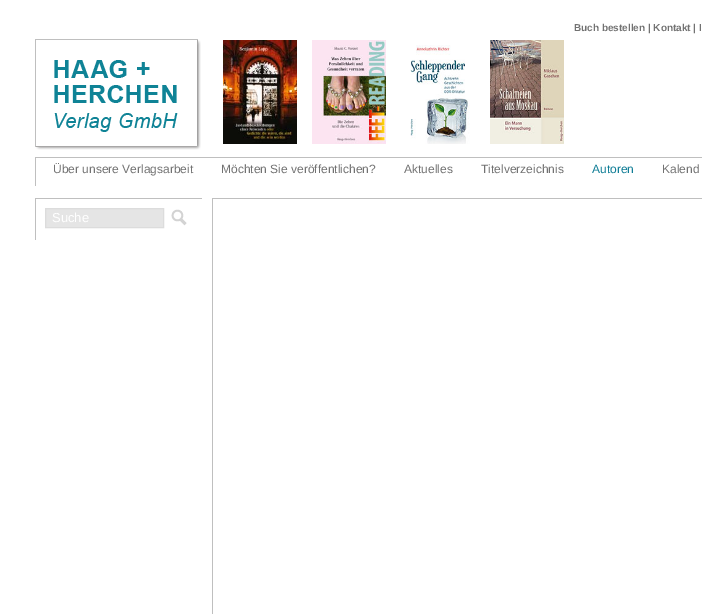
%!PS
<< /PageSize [702 614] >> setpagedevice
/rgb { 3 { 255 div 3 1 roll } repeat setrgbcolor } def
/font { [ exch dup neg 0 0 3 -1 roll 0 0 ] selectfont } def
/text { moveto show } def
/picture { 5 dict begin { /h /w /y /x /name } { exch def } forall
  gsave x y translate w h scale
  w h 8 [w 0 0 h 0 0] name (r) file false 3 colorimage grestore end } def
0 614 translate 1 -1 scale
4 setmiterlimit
255 255 255 rgb
0 0 702 614 rectfill
(img_01.rgb) 35 39 166 111 picture
(img_02.rgb) 223 40 74 104 picture
(img_03.rgb) 312 40 74 104 picture
(img_04.rgb) 410 45 60 99 picture
(img_05.rgb) 490 40 74 104 picture
191 191 191 rgb
35 157 667 1 rectfill
35 157 1 29 rectfill
35 198 167 1 rectfill
35 198 1 42 rectfill
229 229 229 rgb
45.5 208.5 moveto 118 0 rlineto 0 19 rlineto -118 0 rlineto closepath gsave fill grestore
220 220 220 rgb
stroke
(img_06.rgb) 171 209 16 17 picture
191 191 191 rgb
212 198 490 1 rectfill
212 198 1 416 rectfill
/LiberationSans-Bold 10 font
114 114 114 rgb
(Buch bestellen | Kontakt | I) 574 31 text
/LiberationSans-Regular 12 font
(Über unsere Verlagsarbeit) 53 173 text
(Möchten Sie veröffentlichen?) 221 173 text
(Aktuelles) 404 173 text
(Titelverzeichnis) 481 173 text
15 125 150 rgb
(Autoren) 592 173 text
114 114 114 rgb
(Kalend) 662 173 text
/LiberationSans-Regular 13 font
255 255 255 rgb
(Suche) 52 222 text
showpage
